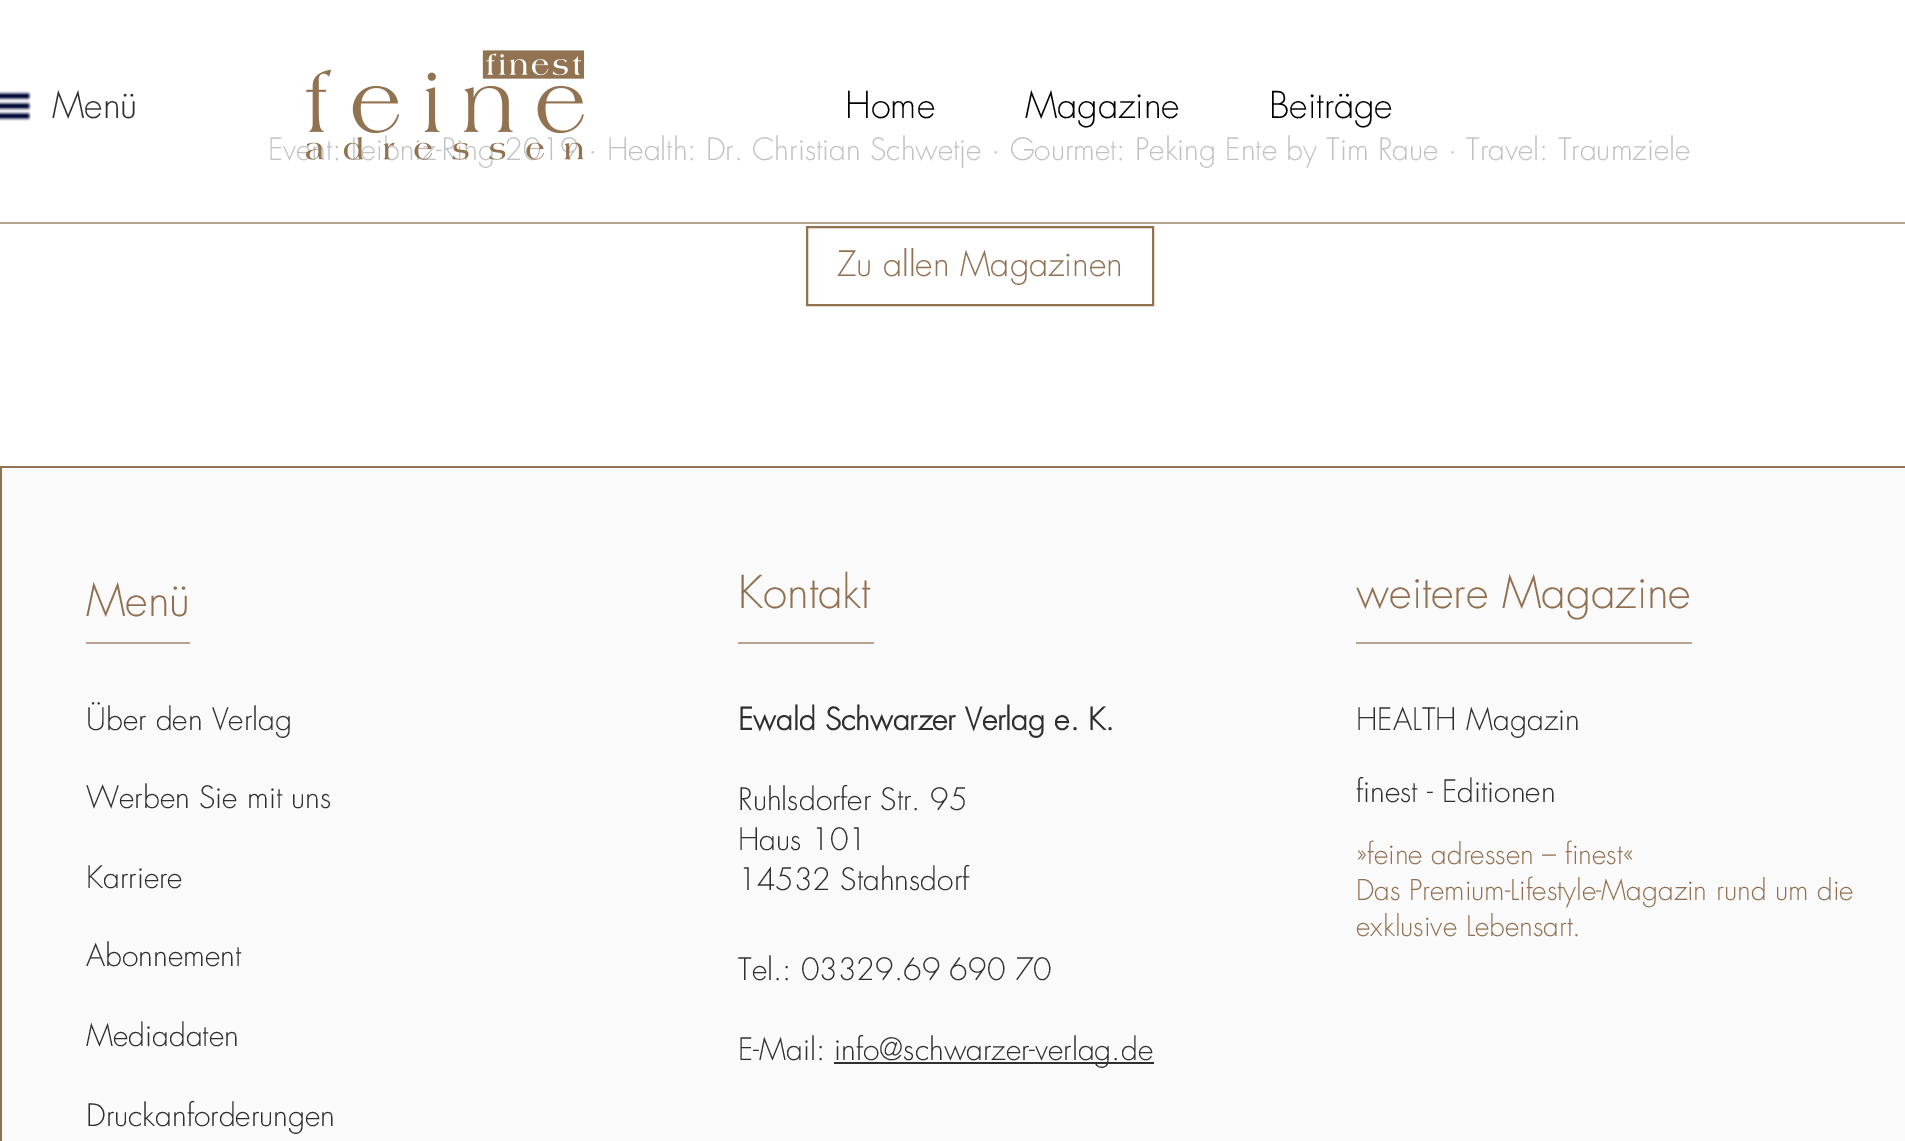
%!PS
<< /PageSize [1905 1141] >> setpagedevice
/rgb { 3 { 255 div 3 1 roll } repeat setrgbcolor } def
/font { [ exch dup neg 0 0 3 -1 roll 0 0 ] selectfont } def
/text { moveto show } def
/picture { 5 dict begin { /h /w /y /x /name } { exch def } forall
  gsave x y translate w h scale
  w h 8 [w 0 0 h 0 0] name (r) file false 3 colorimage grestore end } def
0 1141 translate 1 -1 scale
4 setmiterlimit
255 255 255 rgb
0 0 1905 1141 rectfill
(img_01.rgb) 0 91 31 30 picture
182 162 142 rgb
0 222 1905 2 rectfill
145 114 81 rgb
2 setlinewidth
807 227 346 78 rectstroke
0 466 1905 675 rectfill
250 250 250 rgb
2 468 1903 673 rectfill
182 162 142 rgb
86 642 104 2 rectfill
738 642 136 2 rectfill
47 47 48 rgb
834 1062 320 2 rectfill
182 162 142 rgb
1356 642 336 2 rectfill
/futura-Light 36 font
47 47 48 rgb
(Menü) 52 118 text
0 0 0 rgb
(Home) 845 118 text
(Magazine) 1025 118 text
(Beiträge) 1269 118 text
/futura-Light 30 font
193 193 193 rgb
(Event: Leibniz-Ring 2019 · Health: Dr. Christian Schwetje · Gourmet: Peking Ente by Tim Raue · Travel: Traumziele) 268 160 text
(img_02.rgb) 306 50 278 110 picture
/futura-Light 34 font
144 112 81 rgb
(Zu allen Magazinen) 837 276 text
/futura-Light 44 font
(Menü) 86 616 text
/futura-Light 30 font
47 47 48 rgb
(Über den Verlag) 86 730 text
(Werben Sie mit uns) 86 808 text
(Karriere) 86 888 text
(Abonnement) 86 966 text
(Mediadaten) 86 1046 text
(Druckanforderungen) 86 1126 text
/futura-Light 44 font
144 112 81 rgb
(Kontakt) 738 608 text
/futura-Bold 30 font
47 47 48 rgb
(Ewald Schwarzer Verlag e. K.) 738 730 text
/futura-Light 30 font
(Ruhlsdorfer Str. 95) 738 810 text
(Haus 101) 738 850 text
(14532 Stahnsdorf) 738 890 text
(Tel.: 03329.69 690 70) 738 980 text
(E-Mail:) 738 1060 text
(info@schwarzer-verlag.de) 834 1060 text
/futura-Light 44 font
144 112 81 rgb
(weitere Magazine) 1356 608 text
/futura-Light 30 font
47 47 48 rgb
(HEALTH Magazin) 1356 730 text
(finest - Editionen) 1356 802 text
/futura-Light 28 font
144 112 81 rgb
(»feine adressen – finest«) 1356 864 text
(Das Premium-Lifestyle-Magazin rund um die) 1356 900 text
(exklusive Lebensart.) 1356 936 text
showpage
